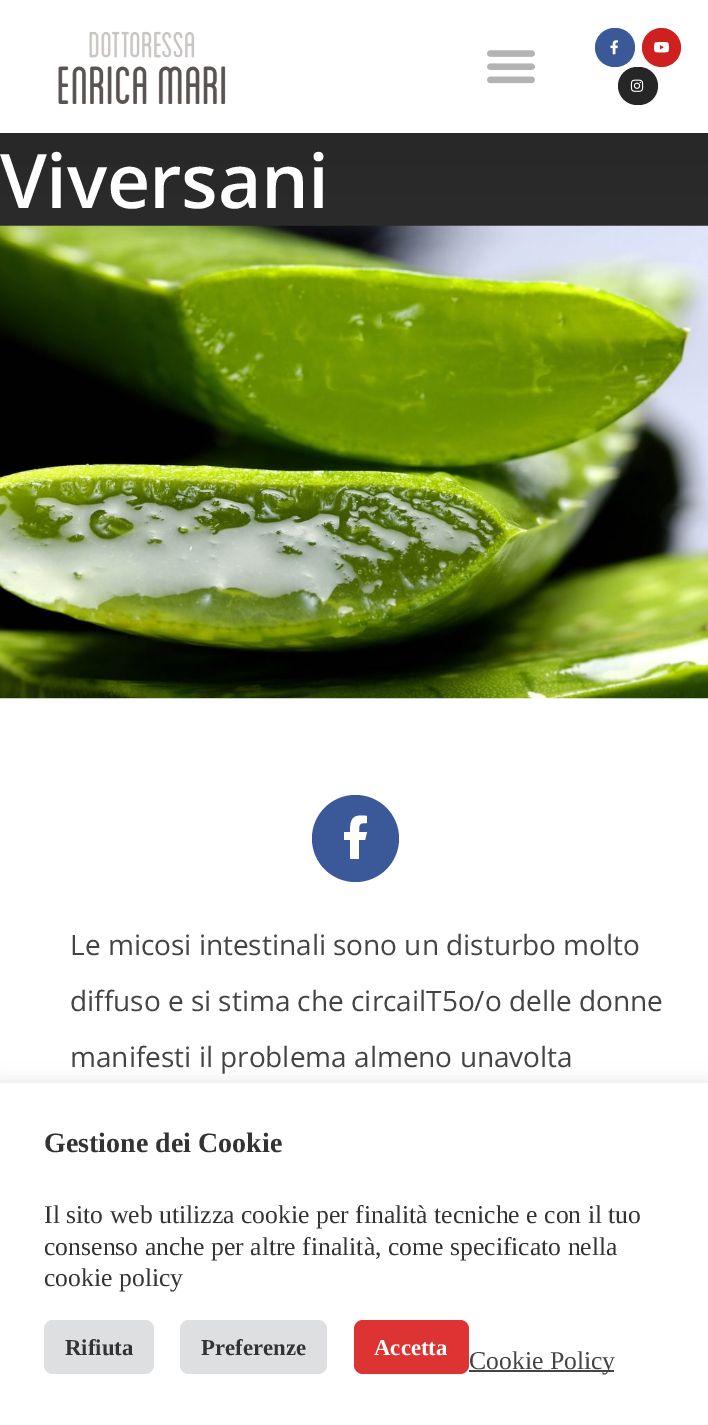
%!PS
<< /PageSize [708 1425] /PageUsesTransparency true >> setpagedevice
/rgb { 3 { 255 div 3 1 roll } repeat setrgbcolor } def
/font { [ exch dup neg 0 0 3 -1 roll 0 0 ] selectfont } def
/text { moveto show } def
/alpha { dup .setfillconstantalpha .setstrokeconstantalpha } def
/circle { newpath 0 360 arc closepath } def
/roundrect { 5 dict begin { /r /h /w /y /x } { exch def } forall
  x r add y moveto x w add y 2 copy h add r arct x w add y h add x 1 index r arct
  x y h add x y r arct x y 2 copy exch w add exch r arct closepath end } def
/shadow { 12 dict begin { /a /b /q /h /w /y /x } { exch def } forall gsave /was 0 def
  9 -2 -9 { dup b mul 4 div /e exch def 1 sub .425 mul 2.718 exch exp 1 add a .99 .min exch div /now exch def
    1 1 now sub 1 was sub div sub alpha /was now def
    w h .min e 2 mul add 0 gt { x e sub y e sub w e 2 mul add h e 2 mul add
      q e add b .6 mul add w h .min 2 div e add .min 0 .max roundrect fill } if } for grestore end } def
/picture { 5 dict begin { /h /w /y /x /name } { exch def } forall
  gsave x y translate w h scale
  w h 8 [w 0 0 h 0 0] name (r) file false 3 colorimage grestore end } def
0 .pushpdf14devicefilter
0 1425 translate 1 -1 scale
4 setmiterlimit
255 255 255 rgb
0 0 708 1425 rectfill
(img_01.rgb) 58 31 168 73 picture
(img_02.rgb) 487 50 48 34 picture
59 89 152 rgb
595 28 40 39 19.5 roundrect fill
(img_03.rgb) 610 40 8 15 picture
205 32 31 rgb
661.5 47.5 19.5 circle fill
(img_04.rgb) 654 42 15 11 picture
38 38 38 rgb
618 67 40 38 19 roundrect fill
(img_05.rgb) 630 79 14 13 picture
gsave 0 133 moveto 708 0 rlineto 0 93 rlineto -708 0 rlineto closepath clip newpath
<< /ShadingType 2 /ColorSpace /DeviceRGB /Coords [354 133 354 698] /Extend [true true] /Function << /FunctionType 2 /Domain [0 1] /C0 [0.157 0.157 0.157] /C1 [0.235 0.235 0.235] /N 1 >> >> shfill grestore
(img_06.rgb) 0 225 708 474 picture
59 89 152 rgb
355.5 838.5 43.5 circle fill
255 255 255 rgb
365 840 moveto -6 0 rlineto 0 19 rlineto -9 0 rlineto 0 -19 rlineto -6 0 rlineto 0 -8 rlineto 6 0 rlineto 0 -14 3 -18 17 -16 rcurveto 0 7 rlineto -8 0 -8 1 -8 9 rcurveto 8 0 rlineto closepath fill
172 171 171 rgb
0 1082 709 343 0 9 0.3 shadow
255 255 255 rgb
0 1083 708 342 rectfill
222 223 224 rgb
44 1320 110 54 9 roundrect fill
180 1320 147 54 9 roundrect fill
221 51 51 rgb
354 1320 115 54 9 roundrect fill
68 68 68 rgb
469 1370 145 2 rectfill
/OpenSans-SemiBold 75.25 font
255 255 255 rgb
0 208 moveto -0.5 0 (Viversani) ashow
/OpenSans-Regular 28 font
68 68 68 rgb
(Le micosi intestinali sono un disturbo molto) 70 955 text
(diffuso e si stima che circailT5o/o delle donne) 70 1011 text
(manifesti il problema almeno unavolta) 70 1067 text
/LiberationSerif-Bold 28 font
51 51 51 rgb
(Gestione dei Cookie) 44 1152 text
/LiberationSerif-Regular 25.7 font
(Il sito web utilizza cookie per finalità tecniche e con il tuo) 44 1223 text
(consenso anche per altre finalità, come specificato nella) 44 1255 text
(cookie policy) 44 1286 text
/LiberationSerif-Bold 22.75 font
(Rifiuta) 65 1355 text
(Preferenze) 201 1355 text
255 255 255 rgb
(Accetta) 374 1355 text
/LiberationSerif-Regular 25.7 font
68 68 68 rgb
(Cookie Policy) 469 1369 text
.poppdf14devicefilter showpage
